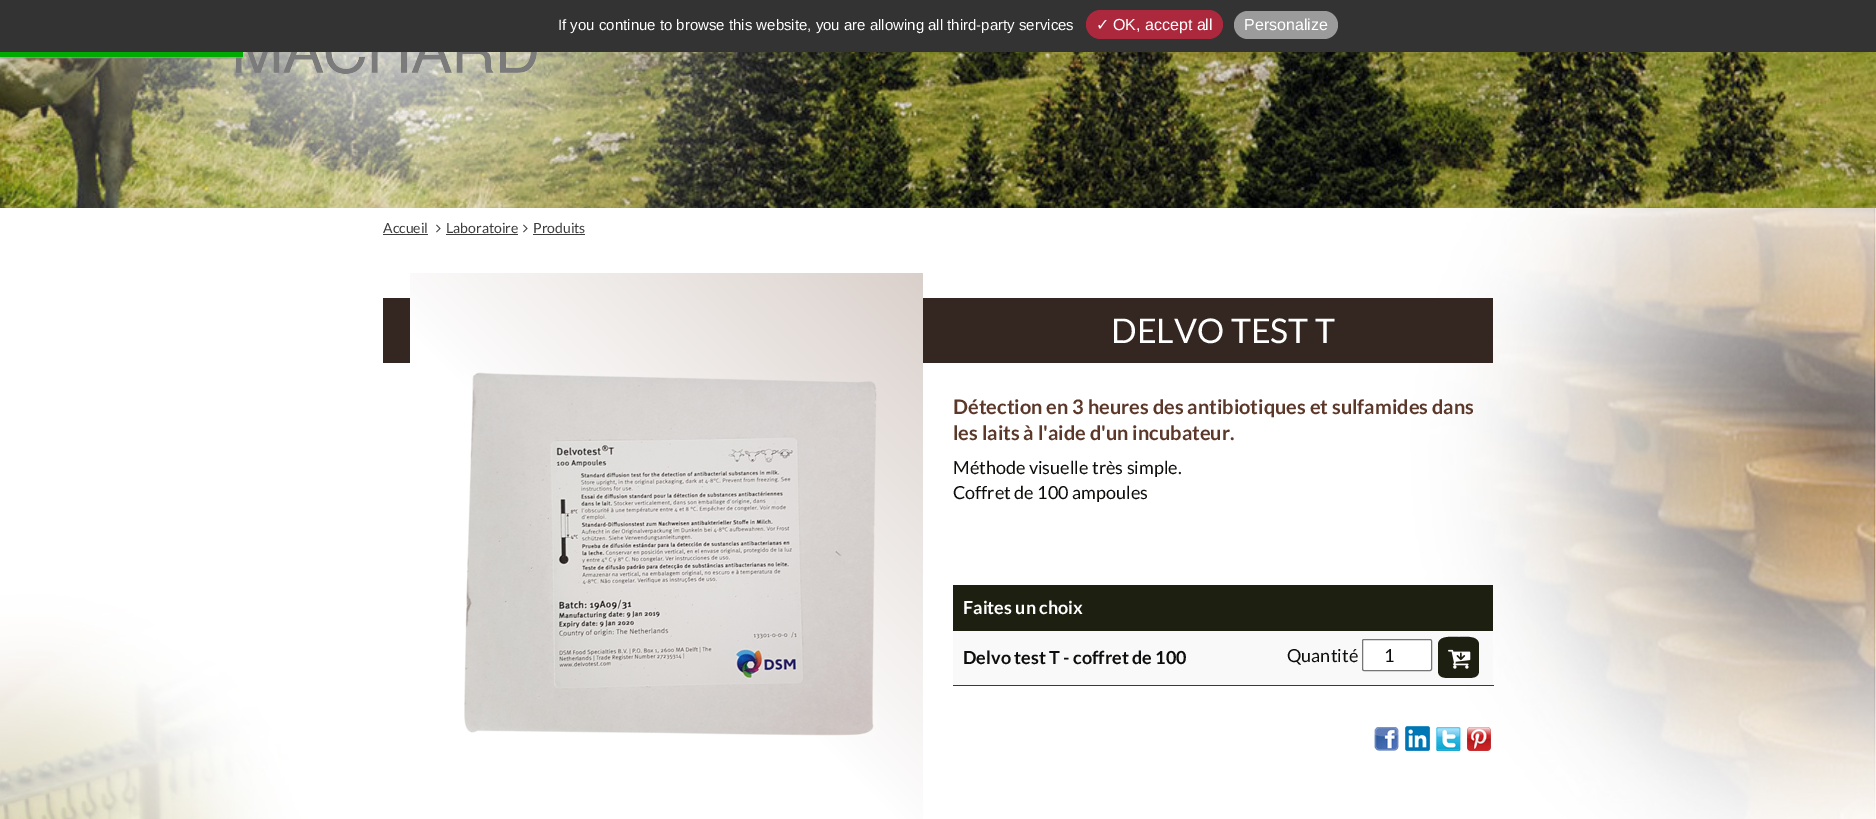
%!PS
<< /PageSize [1876 819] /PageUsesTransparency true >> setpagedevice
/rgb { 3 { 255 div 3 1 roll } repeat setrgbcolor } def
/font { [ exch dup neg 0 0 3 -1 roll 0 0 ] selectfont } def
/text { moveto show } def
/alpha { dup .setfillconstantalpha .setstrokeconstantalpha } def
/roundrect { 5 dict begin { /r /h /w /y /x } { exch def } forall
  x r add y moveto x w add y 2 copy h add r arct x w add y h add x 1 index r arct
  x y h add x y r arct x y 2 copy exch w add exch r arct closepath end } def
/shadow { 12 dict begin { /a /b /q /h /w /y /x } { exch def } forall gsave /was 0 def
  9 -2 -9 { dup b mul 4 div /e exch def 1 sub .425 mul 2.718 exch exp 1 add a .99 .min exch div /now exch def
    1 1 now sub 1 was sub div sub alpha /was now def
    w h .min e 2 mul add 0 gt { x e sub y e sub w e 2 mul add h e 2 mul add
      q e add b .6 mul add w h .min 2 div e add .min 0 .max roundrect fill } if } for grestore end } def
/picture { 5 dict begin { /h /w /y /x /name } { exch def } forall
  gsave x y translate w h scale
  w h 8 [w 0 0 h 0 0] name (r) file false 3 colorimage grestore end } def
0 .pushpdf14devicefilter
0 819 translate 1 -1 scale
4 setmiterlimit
255 255 255 rgb
0 0 1876 819 rectfill
(img_01.rgb) 0 208 1876 611 picture
(img_02.rgb) 0 52 1876 156 picture
(img_03.rgb) 0 52 849 156 picture
(img_04.rgb) 235 52 302 22 picture
85 85 85 rgb
0 53 243 5 0 1 1 shadow
255 255 255 rgb
0 52 243 5 0 1 1 shadow
51 51 51 rgb
0 0 1876 52 rectfill
172 40 61 rgb
1086 10 137 29 14.5 roundrect fill
155 155 155 rgb
1234 11 104 28 14 roundrect fill
0 170 0 rgb
0 52 243 5 rectfill
61 60 60 rgb
383 234 45 1 rectfill
(img_05.rgb) 436 224 5 9 picture
446 234 72 1 rectfill
(img_05.rgb) 523 224 5 9 picture
533 234 52 1 rectfill
52 39 33 rgb
383 298 1110 65 rectfill
gsave 410 273 moveto 513 0 rlineto 0 546 rlineto -513 0 rlineto closepath clip newpath
<< /ShadingType 2 /ColorSpace /DeviceRGB /Coords [379 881 955 305] /Extend [true true] /Function << /FunctionType 3 /Domain [0 1] /Functions [<< /FunctionType 2 /Domain [0 1] /C0 [1 1 1] /C1 [1 1 1] /N 1 >> << /FunctionType 2 /Domain [0 1] /C0 [1 1 1] /C1 [0.855 0.816 0.796] /N 1 >>] /Bounds [0.5] /Encode [0 1 0 1] >> >> shfill grestore
(img_06.rgb) 464 372 413 364 picture
29 31 17 rgb
953 585 540 46 rectfill
249 249 249 rgb
953 631 540 54 rectfill
83 49 32 rgb
953 685 541 1 rectfill
255 255 255 rgb
1362.5 639.5 69 31 1.5 roundrect gsave fill grestore
118 118 118 rgb
stroke
29 31 17 rgb
1479 645 moveto 0 27 rlineto -1 6 -7 6 -12 6 rcurveto -17 0 rlineto -5 0 -11 0 -12 -6 rcurveto 0 -27 rlineto 0 -10 14 -8 21 -8 rcurveto 6 0 20 -2 20 8 rcurveto closepath fill
(img_07.rgb) 1448 649 23 20 picture
(img_08.rgb) 1374 727 25 24 picture
(img_09.rgb) 1405 726 25 25 picture
(img_10.rgb) 1436 727 25 24 picture
(img_11.rgb) 1467 727 24 24 picture
/LiberationSans-Regular 15 font
255 255 255 rgb
(If you continue to browse this website, you are allowing all third-party services) 558 30 text
/DejaVuSans-Regular 16 font
(✓) 1096 30 text
/LiberationSans-Regular 16 font
(OK, accept all) 1113 30 text
(Personalize) 1244 30 text
/Lato-Regular 14 font
61 60 60 rgb
(Accueil) 383 233 text
(Laboratoire) 446 233 text
(Produits) 533 233 text
/Lato-Regular 34 font
255 255 255 rgb
(DELVO TEST T) 1111 343 text
/Lato-Bold 20 font
91 56 42 rgb
(Détection en 3 heures des antibiotiques et sulfamides dans) 953 414 text
(les laits à l'aide d'un incubateur.) 953 440 text
/Lato-Regular 18 font
14 14 12 rgb
(Méthode visuelle très simple.) 953 474 text
(Coffret de 100 ampoules) 953 499 text
/Lato-Bold 18 font
255 255 255 rgb
(Faites un choix) 963 614 text
14 14 12 rgb
(Delvo test T - coffret de 100) 963 664 text
/Lato-Regular 18 font
(Quantité) 1287 662 text
(1) 1384 662 text
.poppdf14devicefilter showpage
